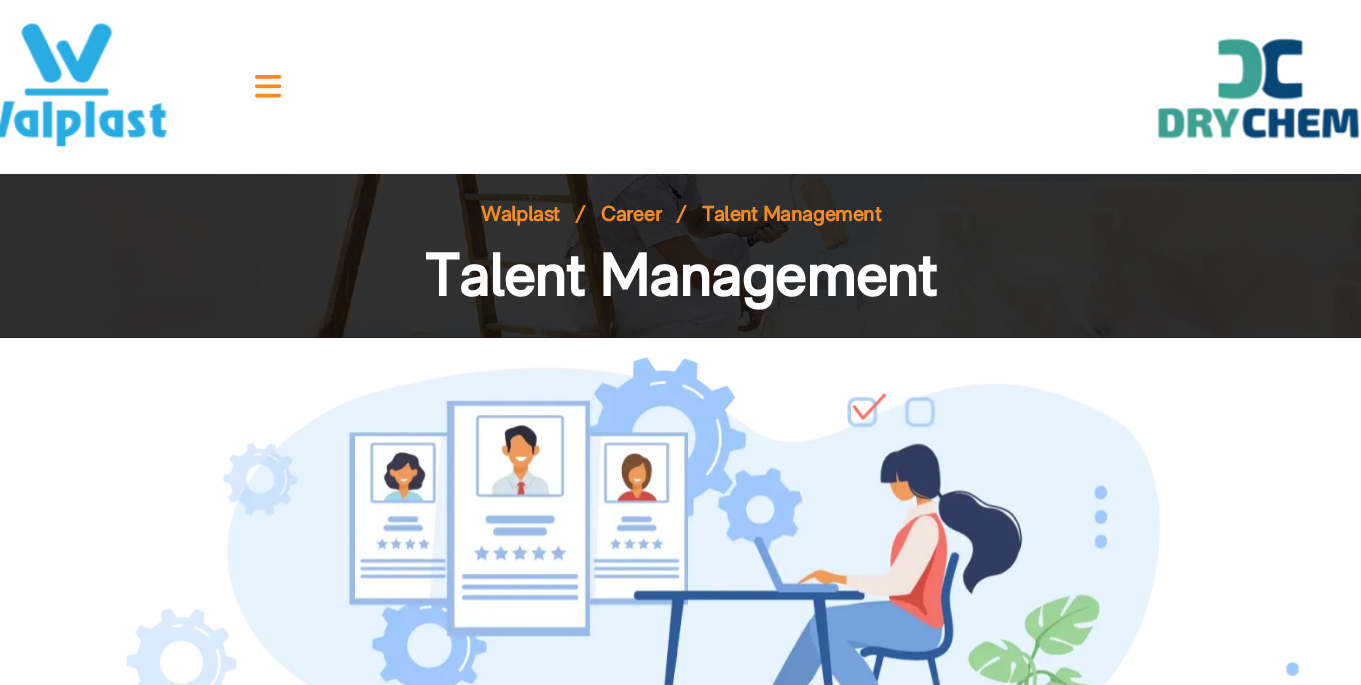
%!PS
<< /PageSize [1361 685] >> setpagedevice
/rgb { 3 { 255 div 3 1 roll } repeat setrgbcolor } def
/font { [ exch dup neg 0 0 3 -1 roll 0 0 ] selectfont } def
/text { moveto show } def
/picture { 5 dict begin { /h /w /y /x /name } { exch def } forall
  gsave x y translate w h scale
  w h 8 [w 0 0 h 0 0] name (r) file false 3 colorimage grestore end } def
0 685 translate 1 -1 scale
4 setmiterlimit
255 255 255 rgb
0 0 1361 685 rectfill
(img_01.rgb) 0 23 168 125 picture
(img_02.rgb) 255 75 27 23 picture
(img_03.rgb) 1157 38 203 101 picture
27 21 37 rgb
0 337 1361 1 rectfill
(img_04.rgb) 0 174 1361 164 picture
(img_05.rgb) 126 357 1174 328 picture
/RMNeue-Bold 21 font
246 139 30 rgb
(Walplast) 481 221 text
(/) 575 221 text
(Career) 601 221 text
(/) 676 221 text
(Talent Management) 702 221 text
/RMNeue-Bold 60 font
255 255 255 rgb
(Talent Management) 425 296 text
showpage
